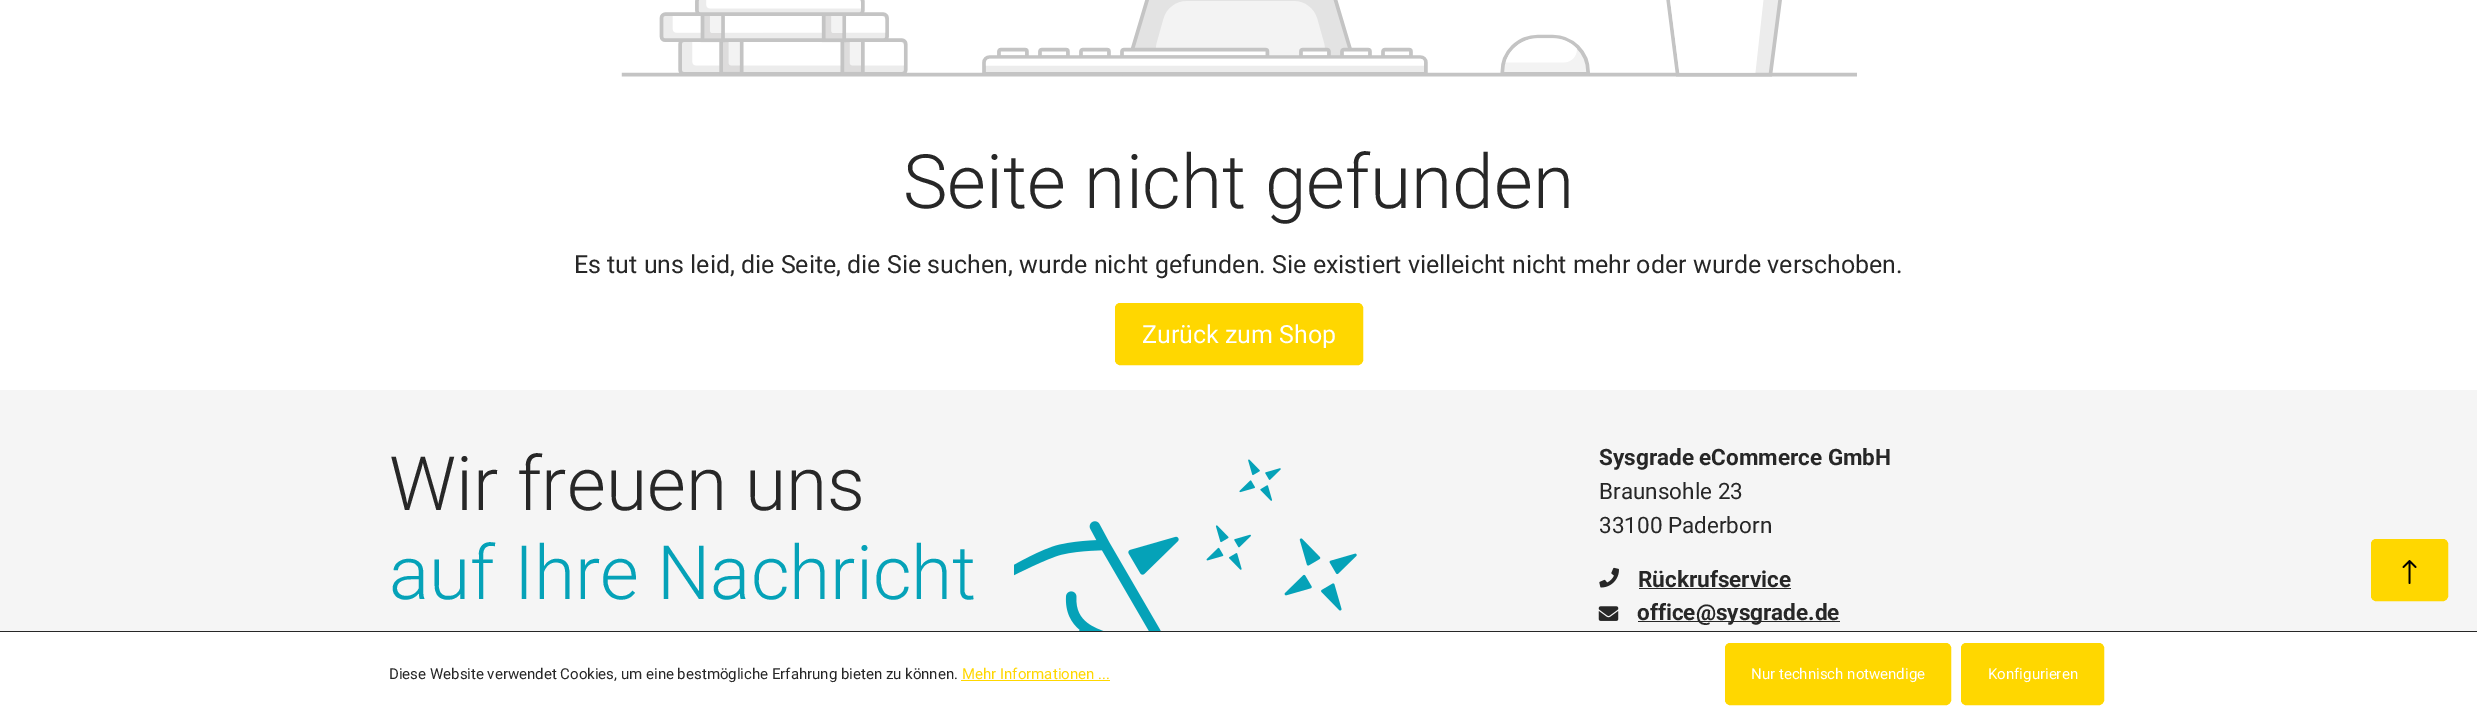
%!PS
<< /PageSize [2477 715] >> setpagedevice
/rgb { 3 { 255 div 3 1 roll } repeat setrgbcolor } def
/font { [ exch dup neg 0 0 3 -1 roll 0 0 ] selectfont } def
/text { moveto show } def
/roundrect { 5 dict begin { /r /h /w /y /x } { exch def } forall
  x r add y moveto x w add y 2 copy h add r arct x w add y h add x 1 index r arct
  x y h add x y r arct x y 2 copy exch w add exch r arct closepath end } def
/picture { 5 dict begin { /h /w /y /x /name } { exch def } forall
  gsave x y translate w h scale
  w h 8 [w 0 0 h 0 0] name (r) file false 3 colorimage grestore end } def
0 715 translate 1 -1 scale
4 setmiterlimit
255 255 255 rgb
0 0 2477 715 rectfill
(img_01.rgb) 621 0 1236 77 picture
255 215 0 rgb
1115.5 303.5 247 61 4.5 roundrect gsave fill grestore
stroke
245 245 245 rgb
0 390 2477 241 rectfill
(img_02.rgb) 1014 459 343 172 picture
(img_03.rgb) 1599 567 20 21 picture
39 39 39 rgb
1639 588 152 1 rectfill
(img_04.rgb) 1598 606 21 15 picture
1638 621 202 1 rectfill
255 215 0 rgb
2371.5 539.5 76 61 4.5 roundrect gsave fill grestore
stroke
(img_05.rgb) 2402 560 15 24 picture
39 39 39 rgb
0 631 2477 1 rectfill
255 215 0 rgb
961 680 149 1 rectfill
1725.5 643.5 225 61 4.5 roundrect gsave fill grestore
stroke
1961.5 643.5 142 61 4.5 roundrect gsave fill grestore
stroke
/Roboto-Light 75 font
39 39 39 rgb
(Seite nicht gefunden) 903 208 text
/Roboto-Regular 25 font
(Es tut uns leid, die Seite, die Sie suchen, wurde nicht gefunden. Sie existiert vielleicht nicht mehr oder wurde verschoben.) 574 273 text
255 255 255 rgb
(Zurück zum Shop) 1142 343 text
/Roboto-Light 75 font
39 39 39 rgb
(Wir freuen uns) 389 510 text
5 162 184 rgb
(auf Ihre Nachricht) 389 599 text
/Roboto-Bold 22.5 font
39 39 39 rgb
(Sysgrade eCommerce GmbH) 1599 465 text
/Roboto-Regular 22.5 font
(Braunsohle 23) 1599 499 text
(33100 Paderborn) 1599 533 text
/Roboto-Bold 22.5 font
(Rückrufservice) 1638 587 text
(office@sysgrade.de) 1637 620 text
/Roboto-Regular 15 font
(Diese Website verwendet Cookies, um eine bestmögliche Erfahrung bieten zu können.) 389 679 text
255 215 0 rgb
(Mehr Informationen ...) 962 679 text
255 255 255 rgb
(Nur technisch notwendige) 1751 679 text
(Konfigurieren) 1988 679 text
showpage
